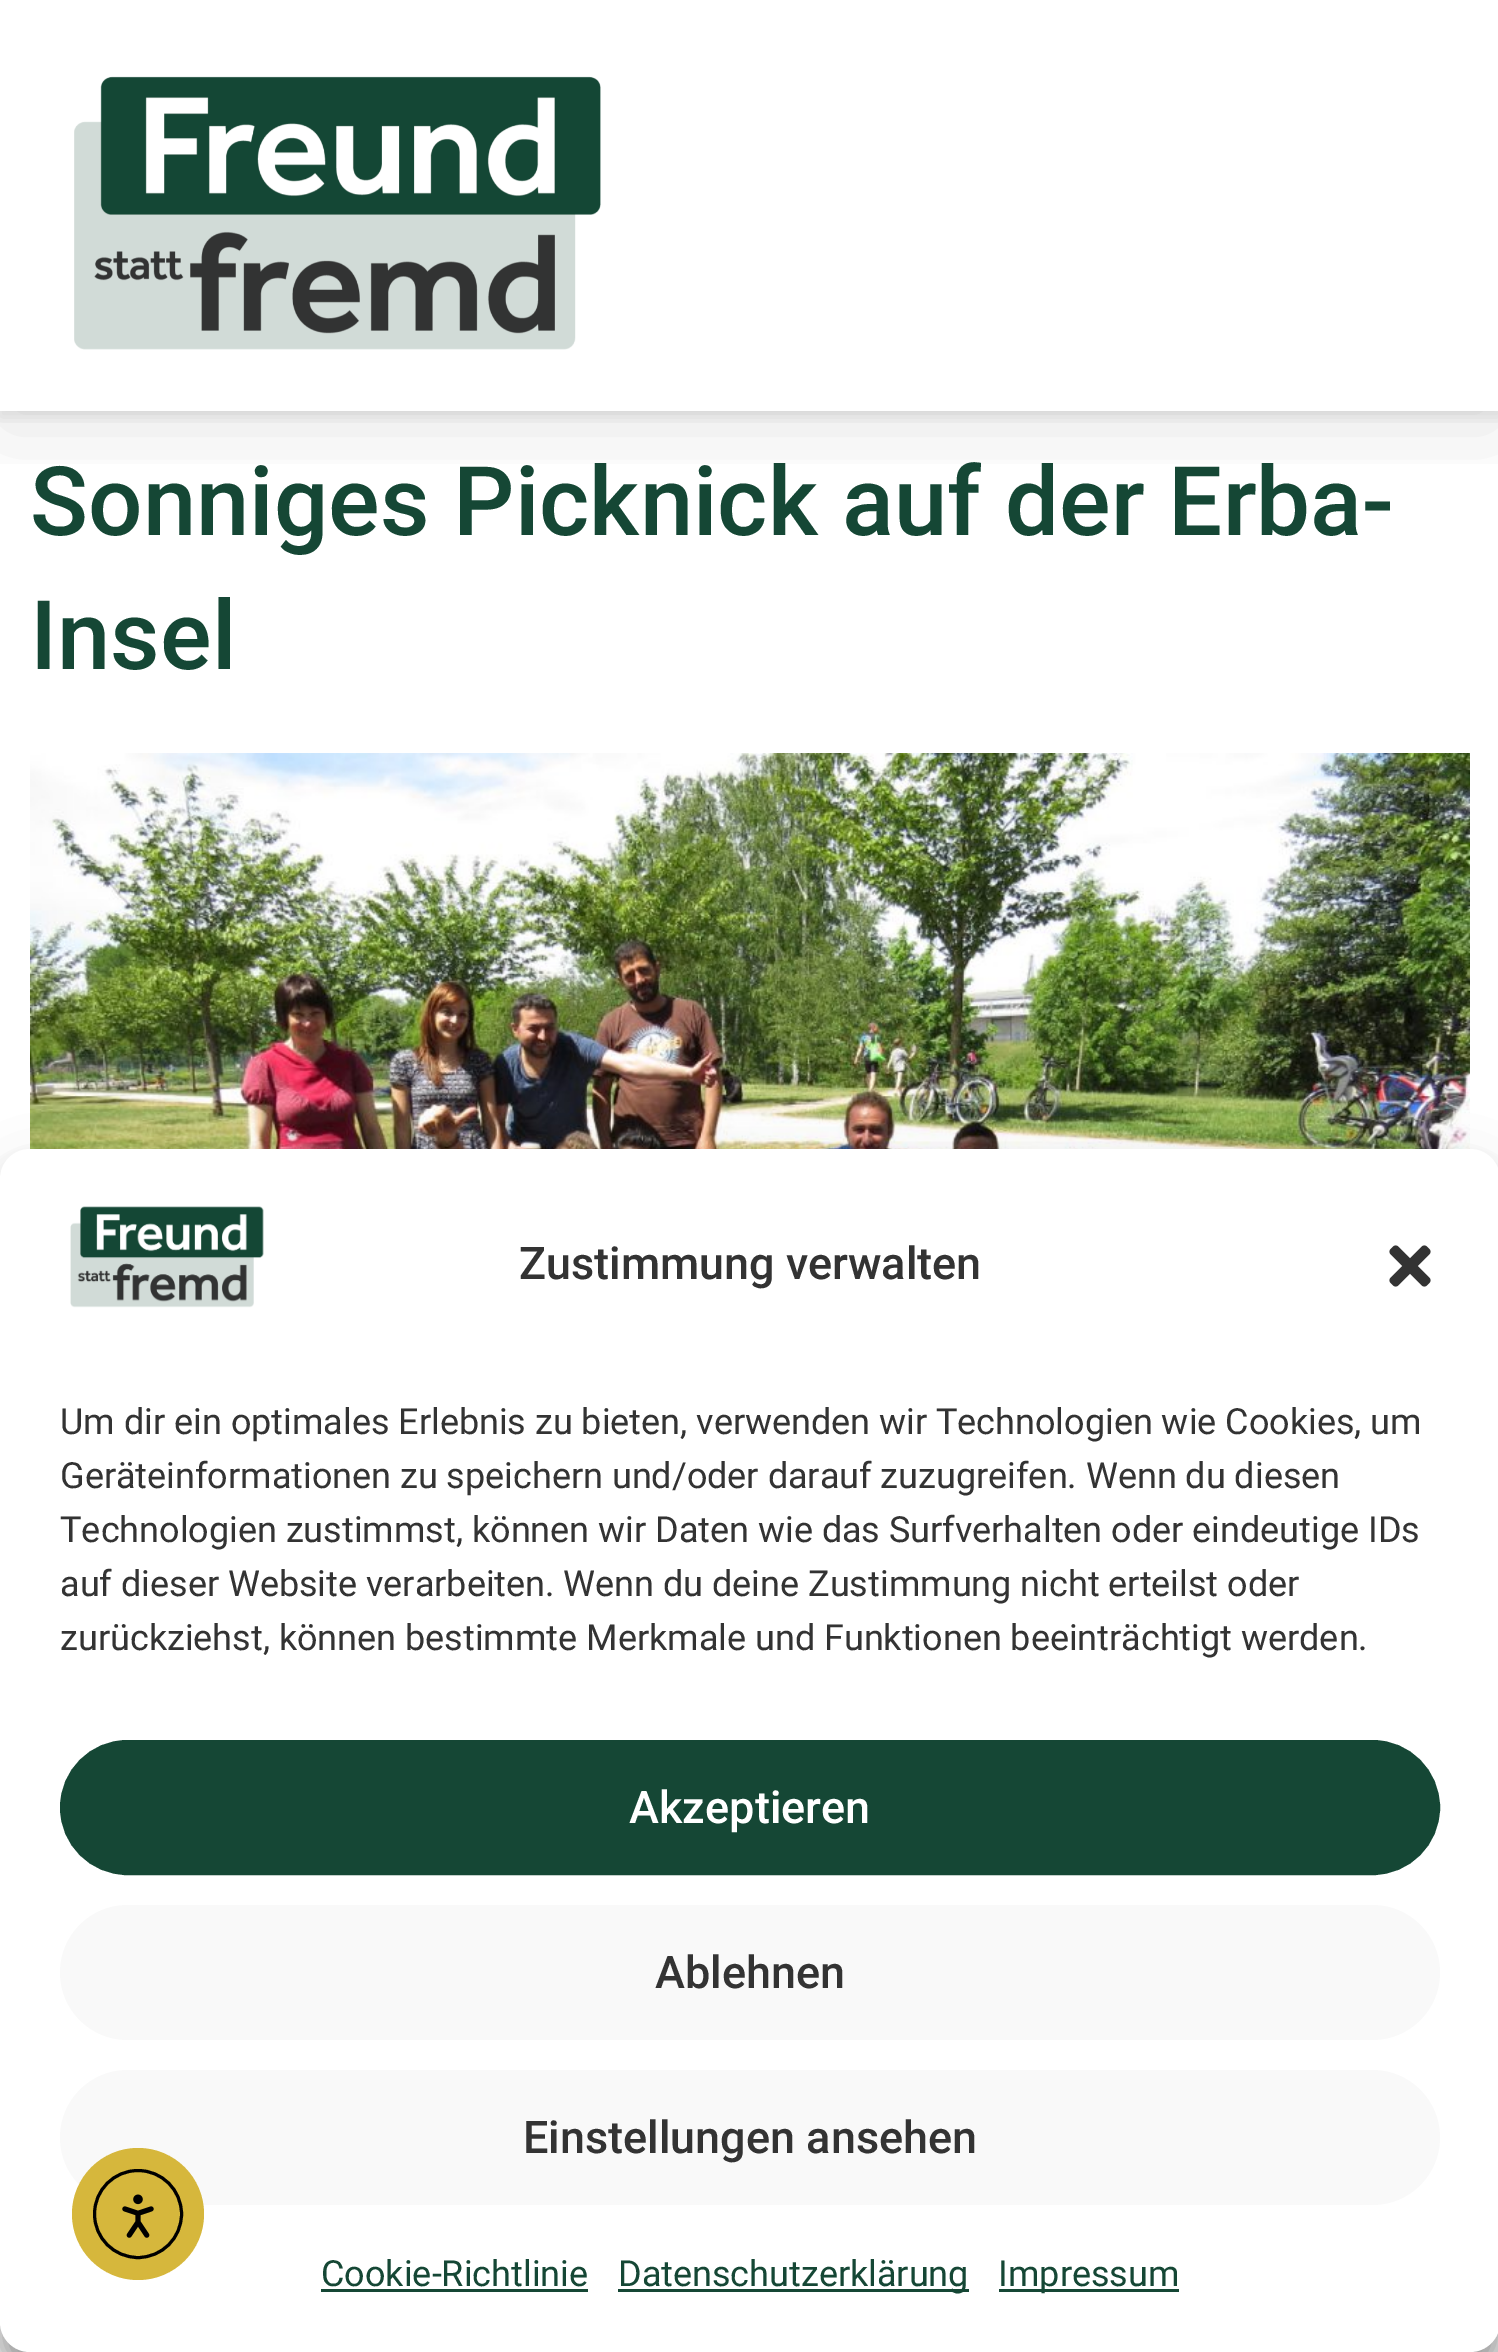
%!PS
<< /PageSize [1498 2352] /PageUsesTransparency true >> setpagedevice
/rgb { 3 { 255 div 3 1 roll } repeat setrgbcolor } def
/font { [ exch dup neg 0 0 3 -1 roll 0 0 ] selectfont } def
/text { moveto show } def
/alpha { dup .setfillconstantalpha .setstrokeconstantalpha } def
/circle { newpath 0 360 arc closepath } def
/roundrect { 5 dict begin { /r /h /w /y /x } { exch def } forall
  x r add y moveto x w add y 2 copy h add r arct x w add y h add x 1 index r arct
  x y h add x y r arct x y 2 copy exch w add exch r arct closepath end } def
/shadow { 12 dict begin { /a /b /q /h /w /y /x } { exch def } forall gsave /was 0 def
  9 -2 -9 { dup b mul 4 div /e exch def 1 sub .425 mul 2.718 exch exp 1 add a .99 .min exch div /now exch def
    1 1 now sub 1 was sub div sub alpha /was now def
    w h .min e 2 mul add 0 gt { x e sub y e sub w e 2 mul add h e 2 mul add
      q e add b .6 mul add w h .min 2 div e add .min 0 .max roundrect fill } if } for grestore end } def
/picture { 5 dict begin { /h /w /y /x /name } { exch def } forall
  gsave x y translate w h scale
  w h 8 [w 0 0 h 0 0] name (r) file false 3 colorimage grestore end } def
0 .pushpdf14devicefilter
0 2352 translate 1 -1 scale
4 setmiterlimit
255 255 255 rgb
0 0 1498 2352 rectfill
gsave
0 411 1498 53 rectclip
0 0 0 rgb
0 15 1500 411 0 45 0.1 shadow
grestore
gsave
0 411 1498 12 rectclip
0 0 0 rgb
0 6 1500 411 0 7.5 0.1 shadow
grestore
(img_01.rgb) 74 76 527 274 picture
(img_02.rgb) 30 753 1440 396 picture
249 249 249 rgb
0 2322 1498 30 rectfill
0 0 0 rgb
0 1167 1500 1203 30 9 0.23 shadow
0 1179 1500 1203 30 30 0.19 shadow
255 255 255 rgb
0 1149 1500 1203 30 roundrect fill
(img_03.rgb) 70 1206 194 102 picture
(img_04.rgb) 1389 1245 42 42 picture
21 71 53 rgb
61.5 1741.5 1377 132 66 roundrect gsave fill grestore
3 setlinewidth
stroke
249 249 249 rgb
60 1905 1380 135 67.5 roundrect fill
60 2070 1380 135 67.5 roundrect fill
21 71 53 rgb
321 2289 267 3 rectfill
618 2289 351 3 rectfill
999 2289 180 3 rectfill
214 183 60 rgb
138 2214 66 circle fill
0 0 0 rgb
138 2214 43.5 circle stroke
(img_05.rgb) 122 2194 32 44 picture
/Roboto-Medium 96 font
21 71 53 rgb
(Sonniges Picknick auf der Erba-) 30 535 text
(Insel) 30 669 text
/Roboto-Medium 45 font
51 51 51 rgb
(Zustimmung verwalten) 519 1279 text
/Roboto-Regular 36 font
(Um dir ein optimales Erlebnis zu bieten, verwenden wir Technologien wie Cookies, um) 60 1434 text
(Geräteinformationen zu speichern und/oder darauf zuzugreifen. Wenn du diesen) 60 1488 text
(Technologien zustimmst, können wir Daten wie das Surfverhalten oder eindeutige IDs) 60 1542 text
(auf dieser Website verarbeiten. Wenn du deine Zustimmung nicht erteilst oder) 60 1596 text
(zurückziehst, können bestimmte Merkmale und Funktionen beeinträchtigt werden.) 60 1650 text
/Roboto-Medium 45 font
255 255 255 rgb
(Akzeptieren) 629 1823 text
51 51 51 rgb
(Ablehnen) 655 1988 text
(Einstellungen ansehen) 523 2153 text
/Roboto-Regular 36 font
21 71 53 rgb
(Cookie-Richtlinie) 321 2286 text
(Datenschutzerklärung) 618 2286 text
(Impressum) 998 2286 text
.poppdf14devicefilter showpage
